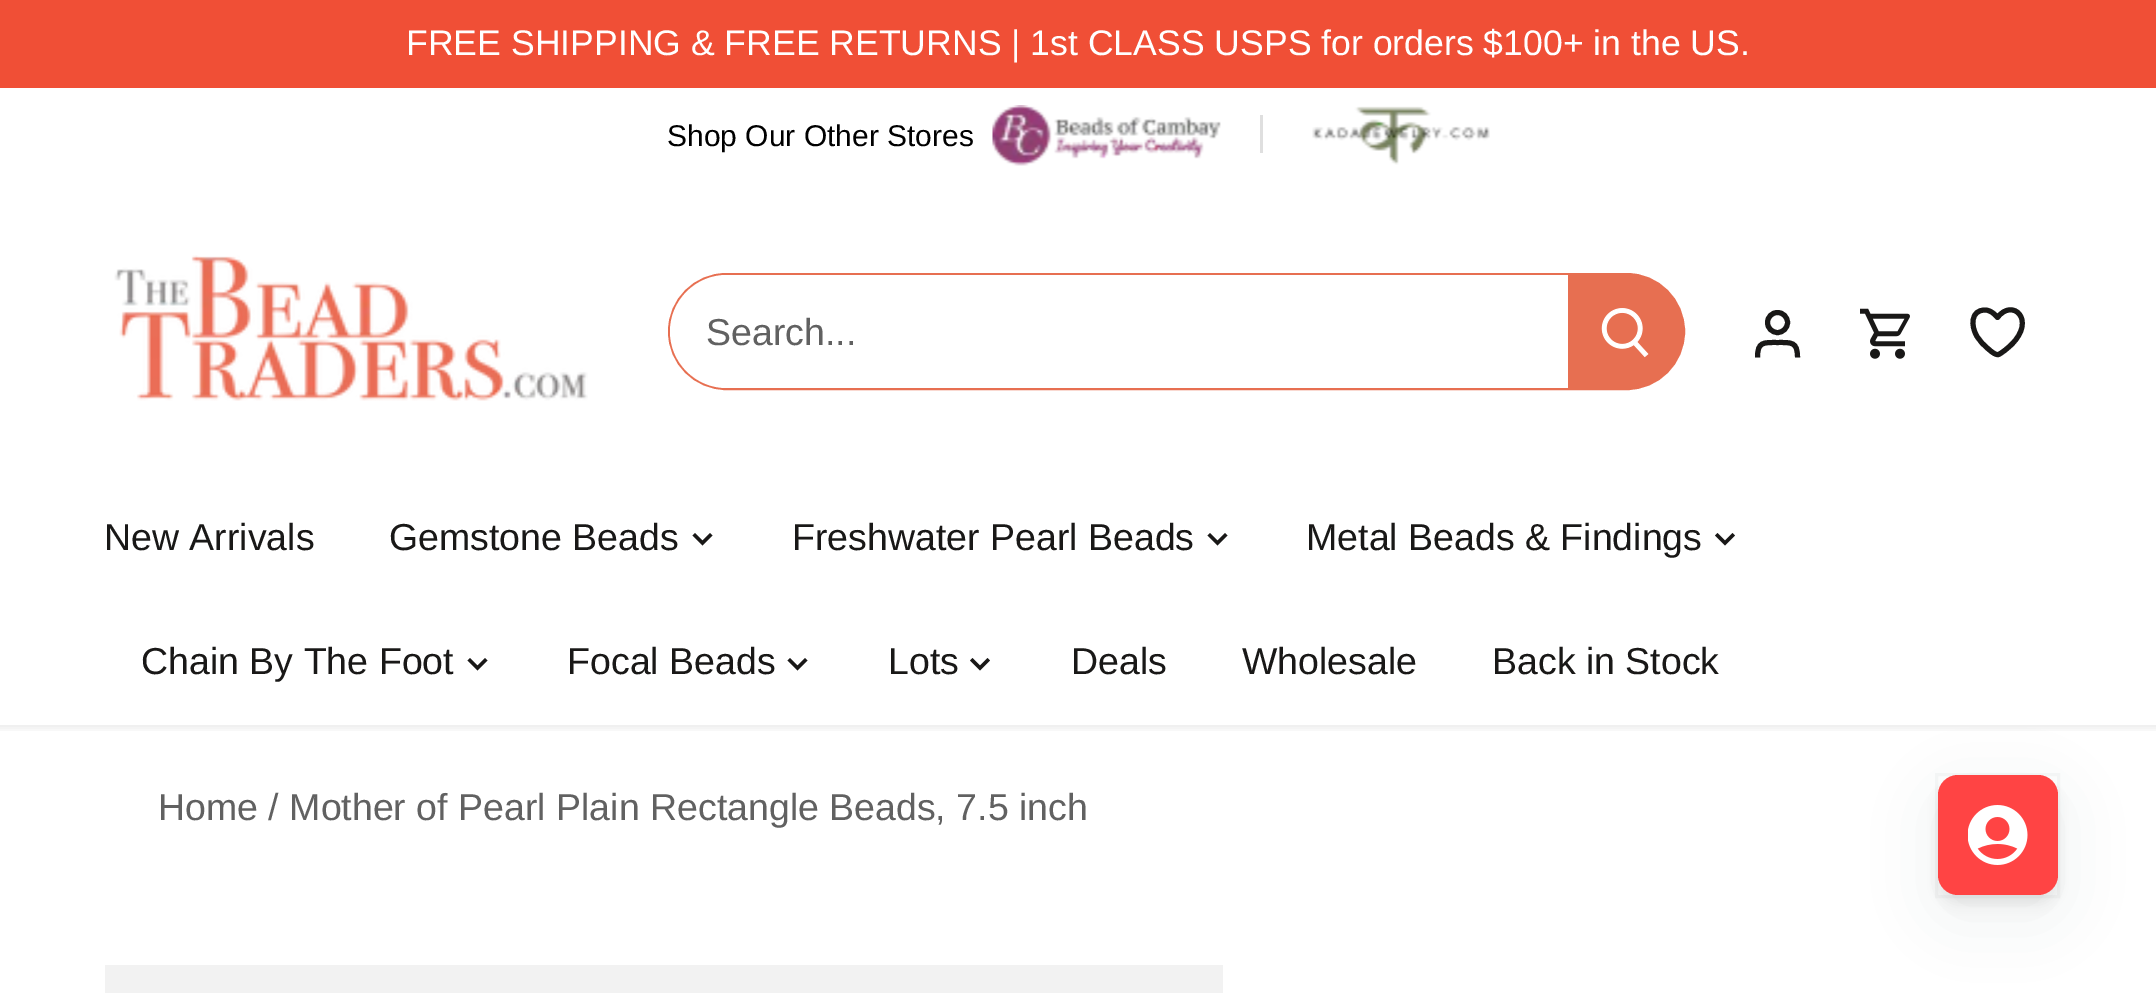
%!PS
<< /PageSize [2156 993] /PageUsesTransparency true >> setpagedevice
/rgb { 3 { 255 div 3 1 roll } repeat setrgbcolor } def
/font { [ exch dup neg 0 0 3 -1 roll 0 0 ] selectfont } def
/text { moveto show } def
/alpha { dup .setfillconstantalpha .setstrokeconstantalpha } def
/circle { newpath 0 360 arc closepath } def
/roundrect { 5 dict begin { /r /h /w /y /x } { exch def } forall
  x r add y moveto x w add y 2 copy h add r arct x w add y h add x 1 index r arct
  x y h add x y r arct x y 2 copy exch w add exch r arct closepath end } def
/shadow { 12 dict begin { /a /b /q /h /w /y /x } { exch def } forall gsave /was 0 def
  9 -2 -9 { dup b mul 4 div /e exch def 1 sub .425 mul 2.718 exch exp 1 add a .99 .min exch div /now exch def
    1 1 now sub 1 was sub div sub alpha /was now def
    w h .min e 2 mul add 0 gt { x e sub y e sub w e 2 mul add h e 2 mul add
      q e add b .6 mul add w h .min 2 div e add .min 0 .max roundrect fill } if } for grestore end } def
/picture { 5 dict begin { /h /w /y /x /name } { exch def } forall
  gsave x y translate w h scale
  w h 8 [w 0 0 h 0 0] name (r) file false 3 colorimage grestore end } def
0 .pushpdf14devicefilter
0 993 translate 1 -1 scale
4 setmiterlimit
255 255 255 rgb
0 0 2156 993 rectfill
240 79 54 rgb
0 0 2156 88 rectfill
gsave
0 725 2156 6 rectclip
0 0 0 rgb
-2 185 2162 543 0 4 0.08 shadow
grestore
255 255 255 rgb
0 180 2156 8 rectfill
(img_01.rgb) 992 105 229 61 picture
223 223 223 rgb
1260 115 3 38 rectfill
(img_02.rgb) 1312 106 178 59 picture
(img_03.rgb) 114 255 474 146 picture
231 111 81 rgb
3 setlinewidth
669.5 274.5 1014 114 57 roundrect stroke
255 255 255 rgb
726.5 275 moveto 843.5 0 rlineto 0 113 rlineto -843.5 0 rlineto -31 0 -56.5 -25.5 -56.5 -56.5 rcurveto 0 -31 25.5 -56.5 56.5 -56.5 rcurveto closepath fill
231 111 81 rgb
1568 275 moveto 58.5 0 rlineto 31 0 56.5 25.5 56.5 56.5 rcurveto 0 31 -25.5 56.5 -56.5 56.5 rcurveto -58.5 0 rlineto closepath fill
(img_04.rgb) 1601 308 48 50 picture
25 24 23 rgb
5 setlinewidth
1777.5 322.5 10 circle stroke
1797.5 357.5 moveto 0 -16 -6 -15 -20 -15 rcurveto -14 0 -20 -1 -20 15 rcurveto stroke
(img_05.rgb) 1860 308 50 51 picture
1 setlinecap
1 setlinejoin
1985 310 moveto -14.5 0 -14 16 -8.5 25.5 rcurveto 3 5.5 7.5 10 12.5 14 rcurveto 0.5 0.5 6.5 6 9.5 5 rcurveto 3.5 -1.5 10 -7 13 -10 rcurveto 25 -24.5 1 -47 -14 -27 rcurveto 0 0 -5.5 -7.5 -12.5 -7.5 rcurveto closepath stroke
695 533 moveto 7.5 7.5 rlineto 7.5 -7.5 rlineto 2.5 2.5 rlineto -10 10 rlineto -10 -10 rlineto closepath fill
1210 533 moveto 7.5 7.5 rlineto 7.5 -7.5 rlineto 2.5 2.5 rlineto -10 10 rlineto -10 -10 rlineto closepath fill
1717.5 533 moveto 7.5 7.5 rlineto 7.5 -7.5 rlineto 2.5 2.5 rlineto -10 10 rlineto -10 -10 rlineto closepath fill
470 658 moveto 7.5 7.5 rlineto 7.5 -7.5 rlineto 2.5 2.5 rlineto -10 10 rlineto -10 -10 rlineto closepath fill
790 658 moveto 7.5 7.5 rlineto 7.5 -7.5 rlineto 2.5 2.5 rlineto -10 10 rlineto -10 -10 rlineto closepath fill
972.5 658 moveto 7.5 7.5 rlineto 7.5 -7.5 rlineto 2.5 2.5 rlineto -10 10 rlineto -10 -10 rlineto closepath fill
242 242 242 rgb
105 965 1118 28 rectfill
55 63 71 rgb
1938 795 120 120 20 30 0.08 shadow
1938 785 120 120 20 5 0.08 shadow
0.04 alpha
3 setlinewidth
0 setlinecap
0 setlinejoin
1936.5 774.5 122 122 rectstroke
1 alpha
255 68 68 rgb
1938 775 120 120 20 roundrect fill
(img_06.rgb) 1968 805 60 60 picture
/LiberationSans-Regular 35.6 font
255 255 255 rgb
(FREE SHIPPING & FREE RETURNS | 1st CLASS USPS for orders $100+ in the US.) 406 55 text
/LiberationSans-Regular 30 font
0 0 0 rgb
(Shop Our Other Stores) 667 146 text
/LiberationSans-Regular 37.5 font
97 97 97 rgb
(Search...) 706 345 text
25 24 23 rgb
(New Arrivals) 104 550 text
(Gemstone Beads) 389 550 text
(Freshwater Pearl Beads) 792 550 text
(Metal Beads & Findings) 1306 550 text
(Chain By The Foot) 141 674 text
(Focal Beads) 567 674 text
(Lots) 888 674 text
(Deals) 1071 674 text
(Wholesale) 1242 674 text
(Back in Stock) 1492 674 text
97 97 97 rgb
(Home / Mother of Pearl Plain Rectangle Beads, 7.5 inch) 158 820 text
.poppdf14devicefilter showpage
